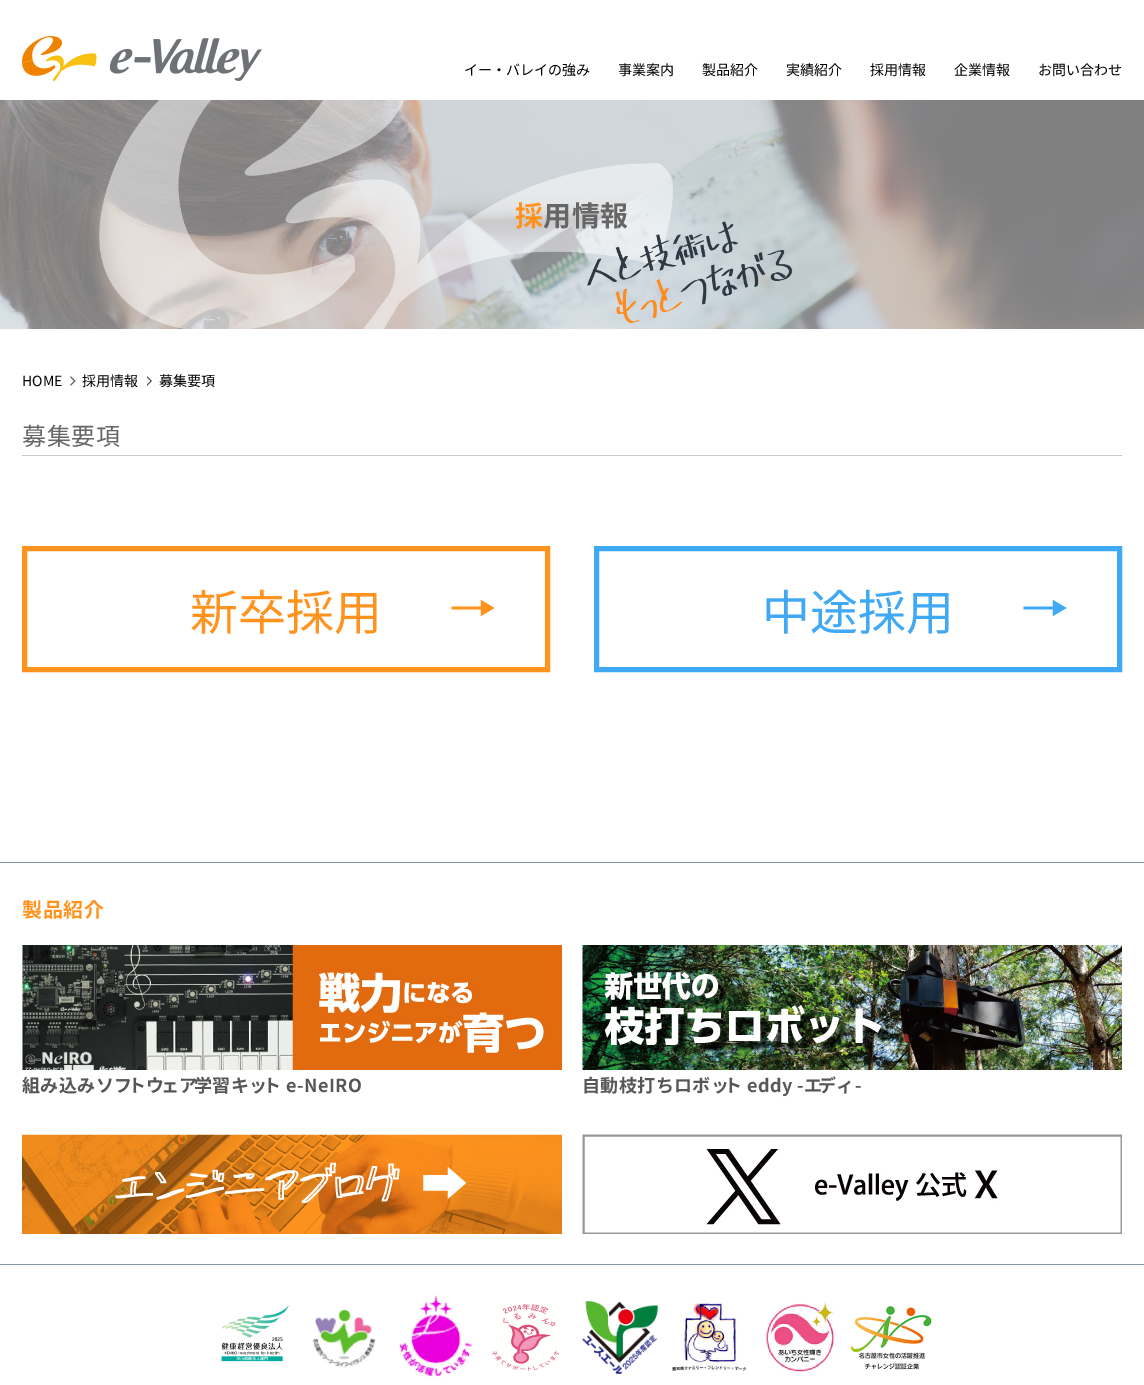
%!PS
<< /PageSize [1144 1385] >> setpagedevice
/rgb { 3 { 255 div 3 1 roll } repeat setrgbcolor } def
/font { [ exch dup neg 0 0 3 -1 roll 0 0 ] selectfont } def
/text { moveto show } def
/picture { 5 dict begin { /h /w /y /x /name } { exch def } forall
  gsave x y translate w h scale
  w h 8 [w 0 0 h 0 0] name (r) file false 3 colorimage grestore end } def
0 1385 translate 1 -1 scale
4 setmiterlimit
255 255 255 rgb
0 0 1144 1385 rectfill
(img_01.rgb) 22 36 240 45 picture
(img_02.rgb) 0 100 1144 229 picture
85 85 85 rgb
70.5 376 moveto 5 5 rlineto -1.5 0 rlineto -3.5 -3.5 rlineto closepath 75.5 381 moveto -5 5 rlineto 0 -1.5 rlineto 3.5 -3.5 rlineto closepath fill
147 376 moveto 5 5 rlineto -1.5 0 rlineto -3.5 -3.5 rlineto closepath 152 381 moveto -5 5 rlineto 0 -1.5 rlineto 3.5 -3.5 rlineto closepath fill
201 201 201 rgb
22 455 1100 1 rectfill
(img_03.rgb) 451 600 44 16 picture
255 147 30 rgb
5 setlinewidth
24.5 548.5 523 121 rectstroke
(img_04.rgb) 1023 600 44 16 picture
63 169 245 rgb
596.5 548.5 523 121 rectstroke
137 149 171 rgb
0 862 1144 1 rectfill
(img_05.rgb) 22 945 540 125 picture
(img_06.rgb) 582 945 540 125 picture
(img_07.rgb) 22 1134 540 100 picture
(img_08.rgb) 582 1134 540 100 picture
0 1264 1144 1 rectfill
(img_09.rgb) 221 1305 69 57 picture
(img_10.rgb) 312 1309 64 59 picture
(img_11.rgb) 399 1295 74 82 picture
(img_12.rgb) 492 1303 67 68 picture
(img_13.rgb) 582 1300 77 74 picture
(img_14.rgb) 672 1302 74 69 picture
(img_15.rgb) 766 1302 69 70 picture
(img_16.rgb) 850 1306 82 64 picture
/NotoSansJP-Regular 14 font
0 0 0 rgb
(イー・バレイの強み) 464 75 text
(事業案内) 618 75 text
(製品紹介) 702 75 text
(実績紹介) 786 75 text
(採用情報) 870 75 text
(企業情報) 954 75 text
(お問い合わせ) 1038 75 text
/NotoSansJP-Bold 28 font
255 147 30 rgb
515 226 moveto 0.5 0 (採) ashow
102 102 102 rgb
543 226 moveto 0.5 0 (用情報) ashow
/NotoSansJP-Regular 14 font
0 0 0 rgb
(HOME) 22 386 text
(採用情報) 82 386 text
(募集要項) 159 386 text
/NotoSansJP-Regular 24 font
102 102 102 rgb
22 445 moveto 0.5 0 (募集要項) ashow
/NotoSansJP-Regular 48 font
255 147 30 rgb
(新卒採用) 190 630 text
63 169 245 rgb
(中途採用) 762 630 text
/NotoSansJP-Bold 20 font
255 147 30 rgb
22 917 moveto 0.5 0 (製品紹介) ashow
/NotoSansJP-Bold 18 font
87 87 87 rgb
22 1092 moveto 0.4 0 (組み込みソフ) ashow
128 1092 moveto 0.4 0 (トウ) ashow
161 1092 moveto 0.4 0 (ェア) ashow
194 1092 moveto 0.4 0 (学習キッ) ashow
263 1092 moveto 0.4 0 (ト e-NeIRO) ashow
582 1092 moveto 0.4 0 (自動枝打ちロボッ) ashow
724 1092 moveto 0.4 0 (ト eddy -エ) ashow
818 1092 moveto 0.4 0 (ディ-) ashow
showpage
